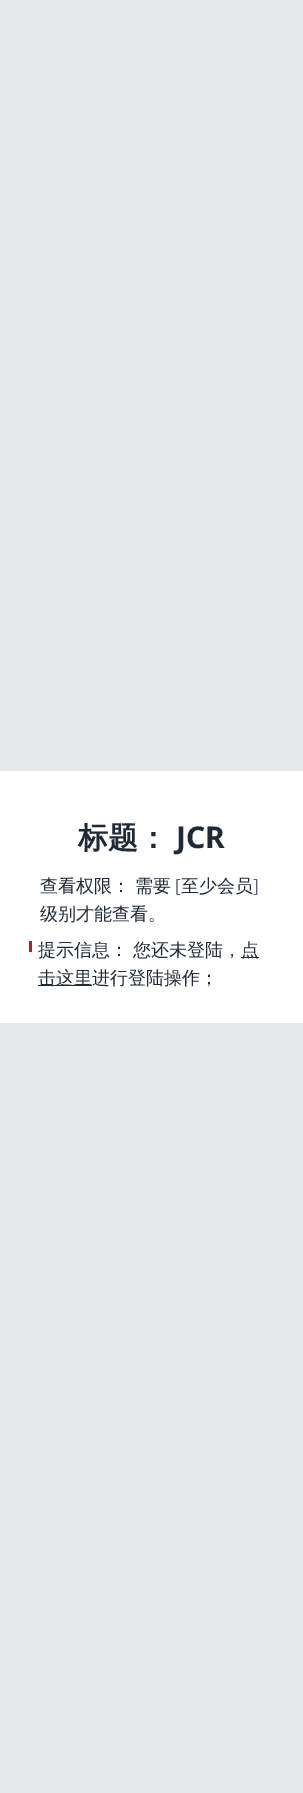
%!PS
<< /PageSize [303 1793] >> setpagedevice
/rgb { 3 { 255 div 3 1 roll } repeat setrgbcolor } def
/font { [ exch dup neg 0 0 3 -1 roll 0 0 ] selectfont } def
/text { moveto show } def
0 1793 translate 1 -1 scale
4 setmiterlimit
229 231 235 rgb
0 0 303 1793 rectfill
255 255 255 rgb
0 771 303 252 rectfill
185 28 28 rgb
29 941 3 11 rectfill
31 41 55 rgb
241 957 18 1 rectfill
38 985 54 1 rectfill
/WenQuanYiZenHei-Bold 30 font
(标题：) 78 848 text
/NotoSans-Bold 30 font
(JCR) 176 848 text
/WenQuanYiZenHei-Medium 18 font
(查看权限：) 40 892 text
(需要) 135 892 text
/NotoSans-Light 18 font
([) 175 892 text
/WenQuanYiZenHei-Medium 18 font
(至少会员) 181 892 text
/NotoSans-Light 18 font
(]) 253 892 text
/WenQuanYiZenHei-Medium 18 font
(级别才能查看。) 40 920 text
(提示信息：) 38 956 text
(您还未登陆，) 133 956 text
(点) 241 956 text
(击这里进行登陆操作；) 38 984 text
showpage
